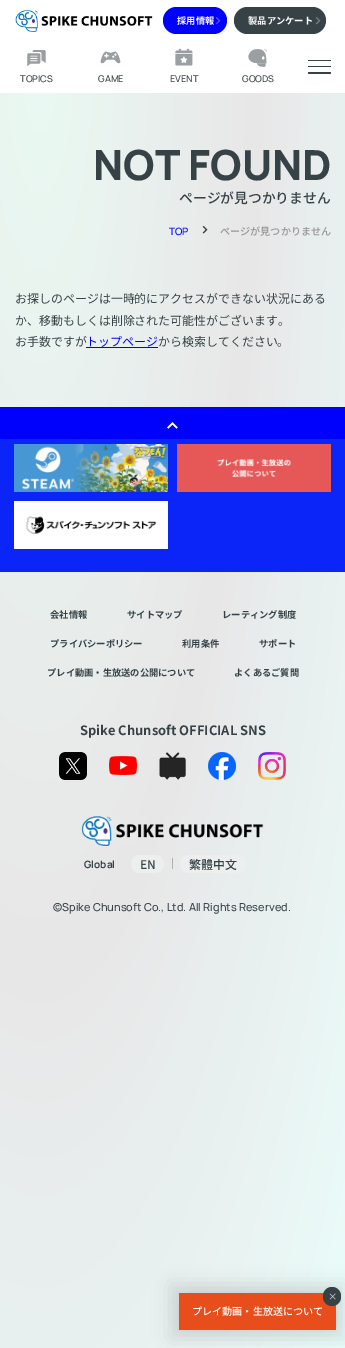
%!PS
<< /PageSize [345 1348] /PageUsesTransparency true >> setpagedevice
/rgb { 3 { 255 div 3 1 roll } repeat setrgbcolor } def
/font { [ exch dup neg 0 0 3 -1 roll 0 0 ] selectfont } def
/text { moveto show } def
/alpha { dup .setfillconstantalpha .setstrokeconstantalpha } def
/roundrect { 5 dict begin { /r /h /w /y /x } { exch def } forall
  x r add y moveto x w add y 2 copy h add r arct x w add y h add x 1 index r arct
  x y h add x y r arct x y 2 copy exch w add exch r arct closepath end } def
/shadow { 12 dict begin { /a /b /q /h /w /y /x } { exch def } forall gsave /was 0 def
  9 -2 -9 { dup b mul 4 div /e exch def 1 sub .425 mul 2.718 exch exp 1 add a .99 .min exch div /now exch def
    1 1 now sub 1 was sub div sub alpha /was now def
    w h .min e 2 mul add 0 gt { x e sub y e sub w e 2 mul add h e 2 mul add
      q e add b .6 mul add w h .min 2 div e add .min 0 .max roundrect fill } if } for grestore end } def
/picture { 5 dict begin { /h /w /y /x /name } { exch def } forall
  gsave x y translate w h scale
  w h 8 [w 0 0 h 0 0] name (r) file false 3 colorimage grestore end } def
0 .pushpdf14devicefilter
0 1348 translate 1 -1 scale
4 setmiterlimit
255 255 255 rgb
0 0 345 1348 rectfill
(img_01.rgb) 15 10 138 22 picture
0 1 253 rgb
163 7 64 27 13.5 roundrect fill
(img_02.rgb) 215 17 6 8 picture
54 66 70 rgb
234 7 92 27 13.5 roundrect fill
(img_03.rgb) 315 17 6 8 picture
308 60 23 1 0.5 roundrect fill
308 66 23 1 0.5 roundrect fill
308 72 23 2 1 roundrect fill
(img_04.rgb) 27 50 19 16 picture
(img_05.rgb) 100 51 21 13 picture
(img_06.rgb) 175 48 18 18 picture
(img_07.rgb) 248 48 19 19 picture
gsave 0 93 moveto 345 0 rlineto 0 1255 rlineto -345 0 rlineto closepath clip newpath 40 40 translate 431 1850 scale
<< /ShadingType 3 /ColorSpace /DeviceRGB /Coords [0 0 0 0 0 1] /Extend [true true] /Function << /FunctionType 3 /Domain [0 1] /Functions [<< /FunctionType 2 /Domain [0 1] /C0 [0.914 0.98 0.953] /C1 [0.91 0.906 0.91] /N 1 >> << /FunctionType 2 /Domain [0 1] /C0 [0.91 0.906 0.91] /C1 [0.914 0.992 0.98] /N 1 >>] /Bounds [0.5] /Encode [0 1 0 1] >> >> shfill grestore
(img_08.rgb) 202 225 6 9 picture
0 1 253 rgb
86 347 72 1 rectfill
11 36 247 rgb
0 439 345 133 rectfill
0 1 253 rgb
0 407 345 32 rectfill
(img_09.rgb) 167 422 11 7 picture
(img_10.rgb) 14 444 154 48 picture
(img_11.rgb) 177 444 154 48 picture
(img_12.rgb) 14 501 154 48 picture
(img_13.rgb) 59 752 28 28 picture
(img_14.rgb) 109 756 28 19 picture
(img_15.rgb) 159 752 27 28 picture
(img_16.rgb) 208 752 28 28 picture
(img_17.rgb) 258 752 28 28 picture
(img_18.rgb) 81 816 183 30 picture
237 239 238 rgb
131 855 33 18 9 roundrect fill
174 177 178 rgb
172 858 1 11 rectfill
237 239 238 rgb
180 855 66 18 9 roundrect fill
0 0 0 rgb
170 1284 175 55 0 9 0.1 shadow
188 1302 139 19 0 9 0.2 shadow
232 77 28 rgb
179 1293 157 37 rectfill
54 66 70 rgb
323 1287 18 19 9 roundrect fill
/NotoSansJP-Bold 9.25 font
255 255 255 rgb
(採用情報) 177 24 text
(製品アンケート) 248 24 text
/Manrope-Medium 9.25 font
54 66 70 rgb
(TOPICS) 20 82 text
(GAME) 98 82 text
(EVENT) 170 82 text
(GOODS) 242 82 text
/Manrope-ExtraBold 41.5 font
(NOT FOUND) 93 180 text
/NotoSansJP-Medium 13.75 font
(ページが見つかりません) 179 203 text
/Manrope-Medium 10.1 font
0 1 253 rgb
(TOP) 169 235 text
/NotoSansJP-Medium 10.1 font
149 149 149 rgb
(ページが見つかりません) 220 235 text
/NotoSansJP-Regular 11.95 font
54 66 70 rgb
(お探しのページは一時的にアクセスができない状況にある) 15 303 text
(か、移動もしくは削除された可能性がございます。) 15 325 text
(お手数ですが) 15 346 text
0 1 253 rgb
(トップページ) 86 346 text
54 66 70 rgb
(から検索してください。) 158 346 text
/NotoSansJP-Bold 9.25 font
(会社情報) 50 618 text
(サイトマップ) 127 618 text
(レーティング制度) 222 618 text
(プライバシーポリシー) 50 647 text
(利用条件) 182 647 text
(サポート) 259 647 text
(プレイ動画・生放送の公開について) 47 676 text
(よくあるご質問) 234 676 text
/NotoSansJP-Bold 12.9 font
(Spike Chunsoft OFFICIAL SNS) 80 735 text
/Manrope-Bold 10.1 font
(Global) 84 868 text
/NotoSansJP-Medium 11.95 font
(EN) 140 869 text
(繁體中文) 189 869 text
/Manrope-Medium 11 font
(©Spike Chunsoft Co., Ltd. All Rights Reserved.) 53 911 text
/NotoSansJP-Medium 9.25 font
205 208 209 rgb
(×) 328 1300 text
/NotoSansJP-Medium 10.1 font
255 255 255 rgb
(プレイ動画・生放送について) 192 1315 text
.poppdf14devicefilter showpage
